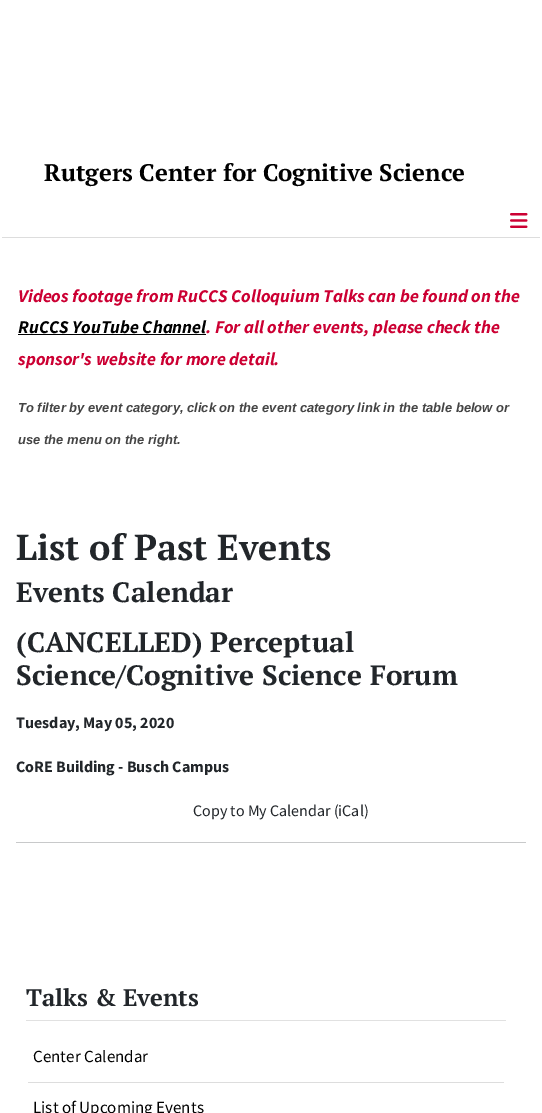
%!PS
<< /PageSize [542 1113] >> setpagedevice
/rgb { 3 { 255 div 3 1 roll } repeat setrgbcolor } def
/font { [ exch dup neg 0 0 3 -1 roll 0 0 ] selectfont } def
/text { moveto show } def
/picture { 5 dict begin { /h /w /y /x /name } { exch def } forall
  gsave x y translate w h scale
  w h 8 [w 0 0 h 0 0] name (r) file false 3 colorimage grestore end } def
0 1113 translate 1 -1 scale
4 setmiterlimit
255 255 255 rgb
0 0 542 1113 rectfill
221 221 221 rgb
2 237 538 1 rectfill
(img_01.rgb) 510 213 18 15 picture
0 0 0 rgb
18 334 188 1 rectfill
200 201 202 rgb
16 842 510 1 rectfill
225 225 225 rgb
26 1020 480 1 rectfill
221 221 221 rgb
28 1082 476 1 rectfill
/PTSerif-Bold 24 font
0 0 0 rgb
(Rutgers Center for Cognitive Science) 44 181 text
/SourceSansPro-BoldItalic 18 font
204 0 51 rgb
(Videos footage from RuCCS Colloquium Talks can be found on the) 18 302 text
0 0 0 rgb
(RuCCS YouTube Channel) 18 333 text
204 0 51 rgb
(. For all other events, please check the) 206 333 text
(sponsor's website for more detail.) 18 365 text
/LiberationSans-BoldItalic 13 font
68 68 68 rgb
(To filter by event category, click on the event category link in the table below or) 18 412 text
(use the menu on the right.) 18 444 text
/PTSerif-Bold 36 font
34 38 42 rgb
(List of Past Events) 16 560 text
/PTSerif-Bold 28 font
(Events Calendar) 16 602 text
(\(CANCELLED\) Perceptual) 16 652 text
(Science/Cognitive Science Forum) 16 685 text
/SourceSansPro-Bold 16 font
(Tuesday, May 05, 2020) 16 728 text
(CoRE Building - Busch Campus) 16 772 text
/SourceSansPro-Regular 16 font
(Copy to My Calendar \(iCal\)) 193 816 text
/PTSerif-Bold 24 font
(Talks & Events) 26 1006 text
/SourceSansPro-Regular 17 font
0 0 0 rgb
(Center Calendar) 33 1062 text
(List of Upcoming Events) 33 1113 text
showpage
